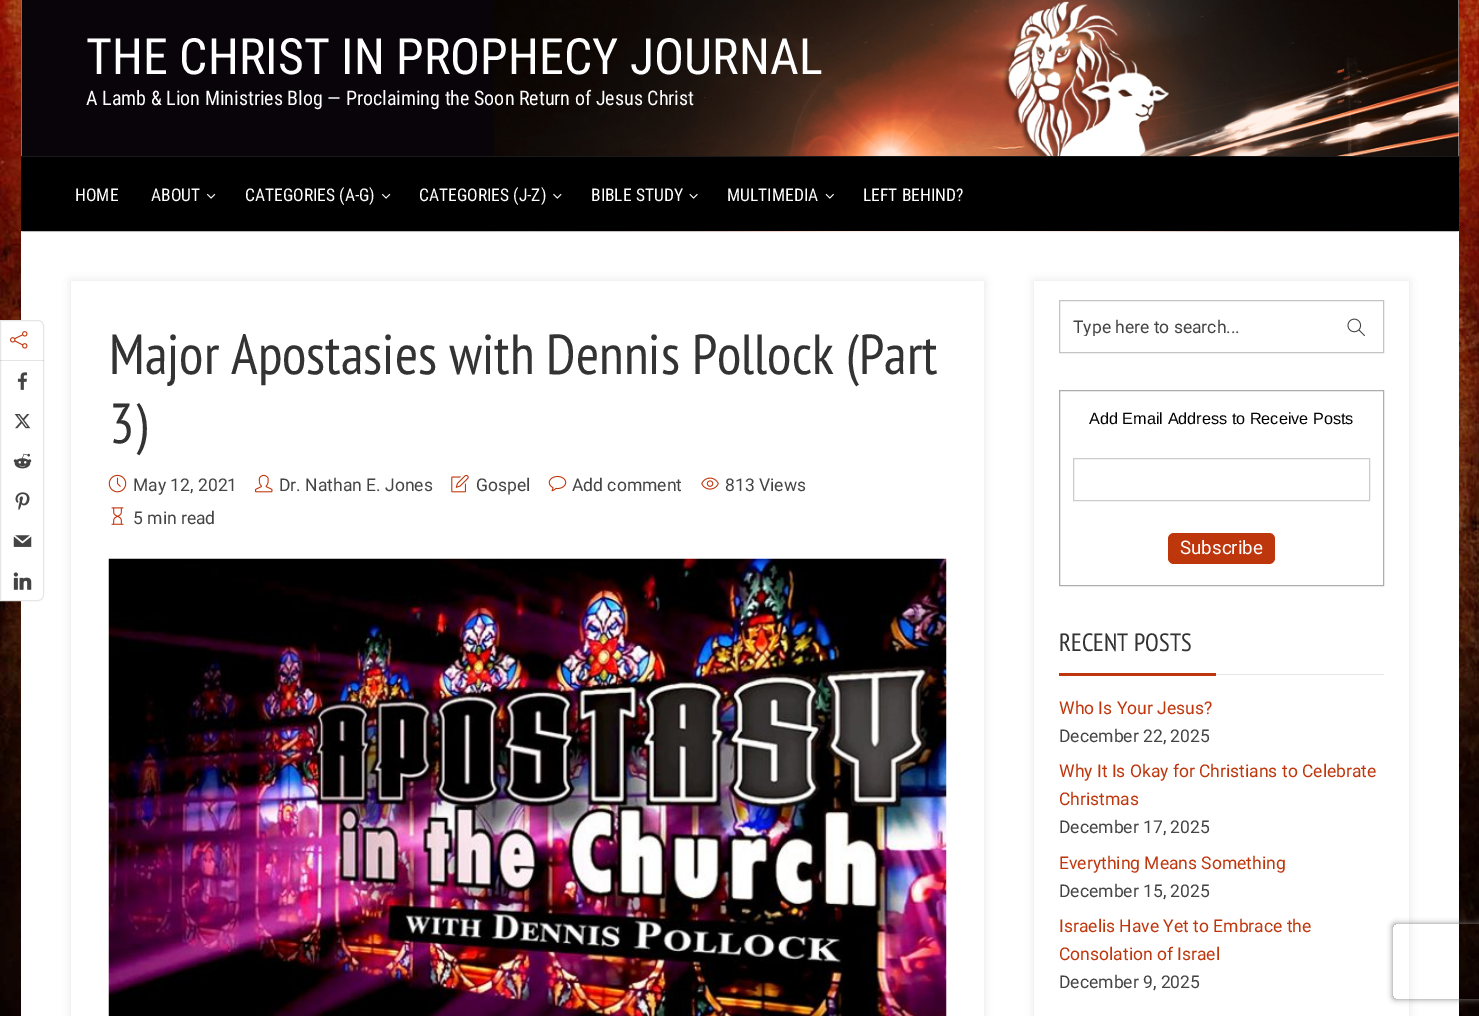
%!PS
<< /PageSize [1479 1016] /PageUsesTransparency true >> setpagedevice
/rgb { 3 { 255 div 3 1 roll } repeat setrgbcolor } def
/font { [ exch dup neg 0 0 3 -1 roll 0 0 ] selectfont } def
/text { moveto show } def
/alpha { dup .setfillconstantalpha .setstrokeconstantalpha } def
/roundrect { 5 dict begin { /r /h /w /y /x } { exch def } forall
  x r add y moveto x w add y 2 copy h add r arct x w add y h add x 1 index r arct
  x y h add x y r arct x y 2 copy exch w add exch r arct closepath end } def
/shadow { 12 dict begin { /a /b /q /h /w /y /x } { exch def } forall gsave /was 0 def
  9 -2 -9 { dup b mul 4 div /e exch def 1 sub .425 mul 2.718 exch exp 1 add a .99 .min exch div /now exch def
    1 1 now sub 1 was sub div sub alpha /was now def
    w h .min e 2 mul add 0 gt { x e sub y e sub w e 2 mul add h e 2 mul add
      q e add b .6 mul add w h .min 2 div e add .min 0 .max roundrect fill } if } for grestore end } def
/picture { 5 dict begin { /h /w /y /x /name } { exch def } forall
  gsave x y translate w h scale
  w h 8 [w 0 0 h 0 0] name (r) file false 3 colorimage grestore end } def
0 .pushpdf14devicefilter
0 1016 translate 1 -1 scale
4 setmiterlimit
255 255 255 rgb
0 0 1479 1016 rectfill
(img_01.rgb) 0 0 1479 1016 picture
21 0 1438 1016 rectfill
0.5 320.5 moveto 37.5 0 rlineto 3 0 5.5 2.5 5.5 5.5 rcurveto 0 269 rlineto 0 3 -2.5 5.5 -5.5 5.5 rcurveto -37.5 0 rlineto closepath gsave fill grestore
230 230 230 rgb
stroke
0.1 alpha
0 0 0 rgb
0 360 44 1 rectfill
1 alpha
(img_02.rgb) 10 331 18 18 picture
(img_03.rgb) 17 372 11 18 picture
(img_04.rgb) 14 414 17 15 picture
(img_05.rgb) 13 453 19 16 picture
(img_06.rgb) 15 492 15 18 picture
(img_07.rgb) 13 535 19 12 picture
(img_08.rgb) 13 572 19 18 picture
24 5 1432 226 0 1 0.1 shadow
(img_09.rgb) 21 0 1438 232 picture
21 157 1438 74 rectfill
26 26 26 rgb
21 156 1438 1 rectfill
(img_10.rgb) 206 193 10 6 picture
(img_10.rgb) 381 193 10 6 picture
(img_11.rgb) 553 193 9 6 picture
(img_12.rgb) 689 193 9 6 picture
(img_13.rgb) 825 193 9 6 picture
0 0 0 rgb
71 281 913 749 0 4.5 0.1 shadow
255 255 255 rgb
71 281 913 735 rectfill
(img_14.rgb) 108 474 19 19 picture
(img_15.rgb) 255 474 18 19 picture
(img_16.rgb) 451 474 18 19 picture
(img_17.rgb) 548 475 19 17 picture
(img_18.rgb) 701 477 18 13 picture
(img_19.rgb) 111 507 13 18 picture
(img_20.rgb) 108 558 839 458 picture
0 0 0 rgb
1034 281 375 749 0 4.5 0.1 shadow
255 255 255 rgb
1034 281 375 735 rectfill
196 196 196 rgb
1059.5 300.5 324 52 rectstroke
(img_21.rgb) 1347 318 18 18 picture
173 173 173 rgb
1059.5 390.5 324 195 rectstroke
204 204 204 rgb
1073.5 458.5 296 42 rectstroke
190 54 12 rgb
1168 533 107 31 6 roundrect fill
230 230 230 rgb
1216 674 168 1 rectfill
190 54 12 rgb
1059 673 157 3 rectfill
gsave
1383 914 moveto 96 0 rlineto 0 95 rlineto -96 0 rlineto closepath 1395.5 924 moveto 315 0 rlineto 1.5 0 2.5 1 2.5 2.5 rcurveto 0 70 rlineto 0 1.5 -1 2.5 -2.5 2.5 rcurveto -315 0 rlineto -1.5 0 -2.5 -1 -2.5 -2.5 rcurveto 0 -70 rlineto 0 -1.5 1 -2.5 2.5 -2.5 rcurveto closepath eoclip newpath
128 128 128 rgb
1393 924 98 75 2.5 3 1 shadow
grestore
/RobotoCondensed-Regular 50 font
255 255 255 rgb
(THE CHRIST IN PROPHECY JOURNAL) 86 74 text
/RobotoCondensed-Regular 20 font
(A Lamb & Lion Ministries Blog — Proclaiming the Soon Return of Jesus Christ) 86 105 text
/RobotoCondensed-Regular 17.5 font
(HOME) 75 201 text
(ABOUT) 151 201 text
(CATEGORIES \(A-G\)) 245 201 text
(CATEGORIES \(J-Z\)) 419 201 text
(BIBLE STUDY) 591 201 text
(MULTIMEDIA) 727 201 text
(LEFT BEHIND?) 863 201 text
/PTSansNarrow-Regular 56.25 font
51 51 51 rgb
(Major Apostasies with Dennis Pollock \(Part) 109 374 text
(3\)) 109 443 text
/Roboto-Regular 17.5 font
68 68 68 rgb
(May 12, 2021) 133 491 text
(Dr. Nathan E. Jones) 279 491 text
(Gospel) 476 491 text
(Add comment) 572 491 text
(813 Views) 725 491 text
(5 min read) 133 524 text
gsave
1073 316 297 20 rectclip
(Type here to search...) 1073 333 text
grestore
/LiberationSans-Regular 16.25 font
0 0 0 rgb
(Add Email Address to Receive Posts) 1089 424 text
/Roboto-Regular 18.75 font
255 255 255 rgb
(Subscribe) 1180 554 text
/PTSansNarrow-Regular 25 font
51 51 51 rgb
(RECENT POSTS) 1059 651 text
/Roboto-Regular 17.5 font
190 54 12 rgb
(Who Is Your Jesus?) 1059 714 text
68 68 68 rgb
(December 22, 2025) 1059 742 text
190 54 12 rgb
(Why It Is Okay for Christians to Celebrate) 1059 777 text
(Christmas) 1059 805 text
68 68 68 rgb
(December 17, 2025) 1059 833 text
190 54 12 rgb
(Everything Means Something) 1059 869 text
68 68 68 rgb
(December 15, 2025) 1059 897 text
190 54 12 rgb
(Israelis Have Yet to Embrace the) 1059 932 text
(Consolation of Israel) 1059 960 text
68 68 68 rgb
(December 9, 2025) 1059 988 text
.poppdf14devicefilter showpage
